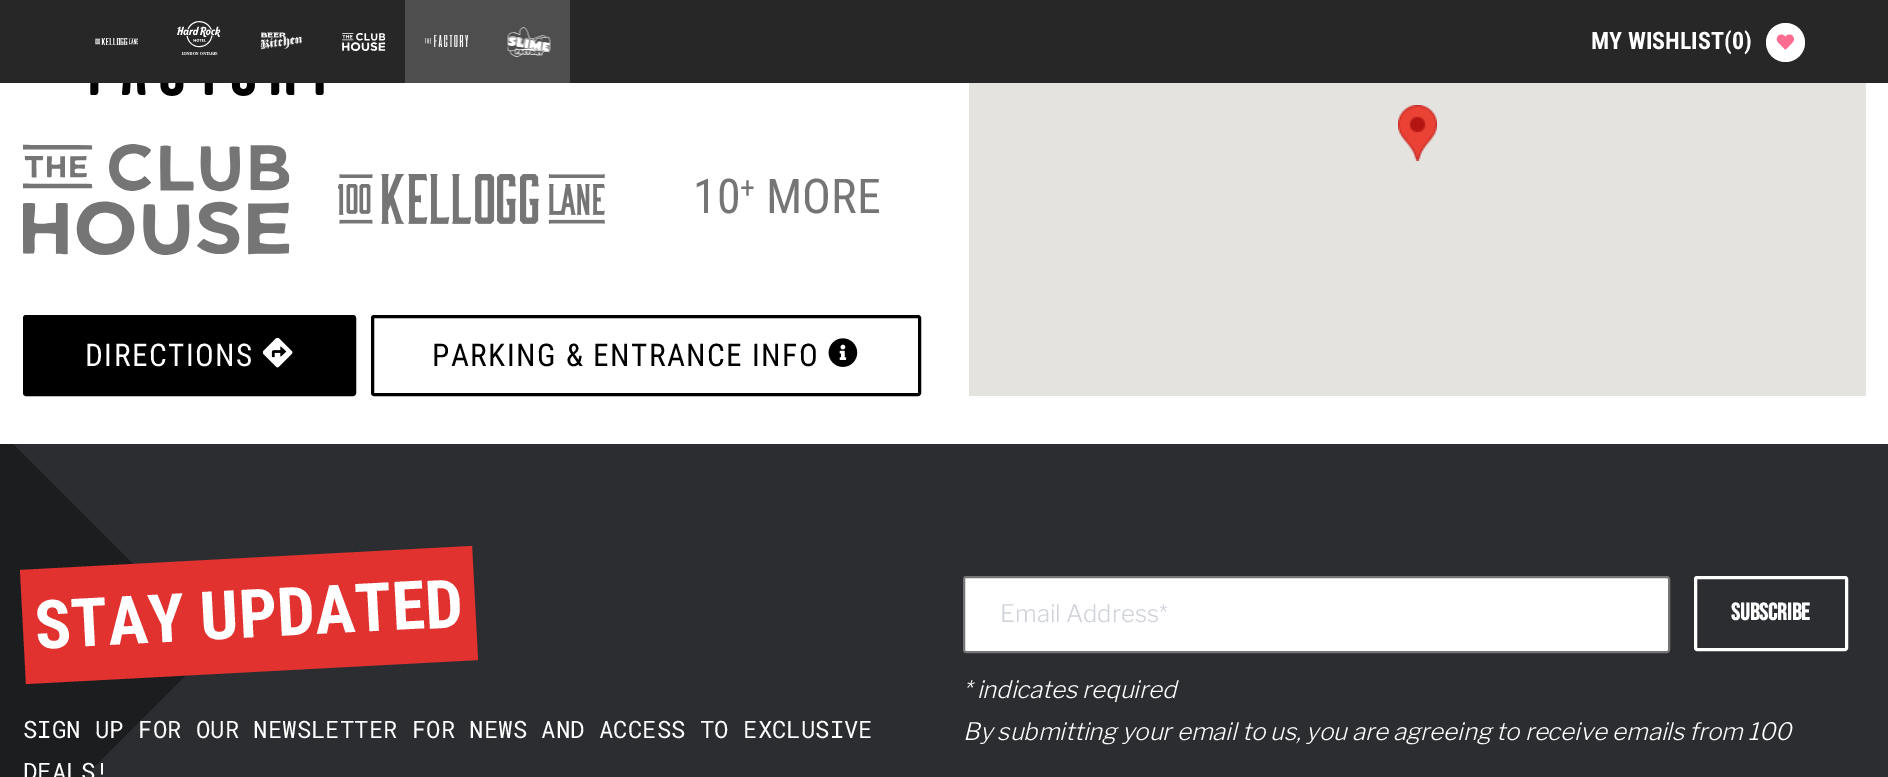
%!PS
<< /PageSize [1888 777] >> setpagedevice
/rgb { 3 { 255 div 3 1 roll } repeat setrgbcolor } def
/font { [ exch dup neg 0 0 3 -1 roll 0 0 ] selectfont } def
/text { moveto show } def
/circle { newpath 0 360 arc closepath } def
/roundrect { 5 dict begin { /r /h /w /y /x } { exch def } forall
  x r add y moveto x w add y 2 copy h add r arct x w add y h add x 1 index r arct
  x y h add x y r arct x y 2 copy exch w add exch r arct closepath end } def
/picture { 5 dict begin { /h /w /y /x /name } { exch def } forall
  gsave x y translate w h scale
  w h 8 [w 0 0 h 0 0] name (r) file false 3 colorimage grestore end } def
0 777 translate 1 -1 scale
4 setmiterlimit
255 255 255 rgb
0 0 1888 777 rectfill
39 39 39 rgb
0 0 1888 83 rectfill
(img_01.rgb) 177 21 44 34 picture
78 78 78 rgb
405 0 165 83 rectfill
(img_02.rgb) 425 35 43 12 picture
(img_03.rgb) 95 38 43 7 picture
(img_04.rgb) 260 32 43 18 picture
(img_05.rgb) 342 33 44 18 picture
(img_06.rgb) 507 27 44 30 picture
255 255 255 rgb
1785.5 42.5 19.5 circle fill
(img_07.rgb) 1776 34 18 16 picture
(img_08.rgb) 90 83 234 13 picture
(img_09.rgb) 23 144 267 111 picture
(img_10.rgb) 338 174 267 50 picture
0 0 0 rgb
24.5 316.5 330 78 1.5 roundrect gsave fill grestore
3 setlinewidth
stroke
(img_11.rgb) 263 338 30 30 picture
372.5 316.5 547 78 1.5 roundrect stroke
(img_12.rgb) 828 338 30 29 picture
229 227 223 rgb
969 83 897 313 rectfill
(img_13.rgb) 1398 105 39 56 picture
43 45 48 rgb
0 444 1888 333 rectfill
(img_14.rgb) 0 444 187 333 picture
226 50 48 rgb
20 570 moveto 452 -24 rlineto 6 114 rlineto -452 24 rlineto closepath fill
255 255 255 rgb
964 577 705 75 2 roundrect gsave fill grestore
118 118 118 rgb
2 setlinewidth
stroke
255 255 255 rgb
3 setlinewidth
1695.5 577.5 151 72 1.5 roundrect stroke
/RobotoCondensed-Bold 24 font
(MY WISHLIST\(0\)) 1591 49 text
/RobotoCondensed-Regular 48 font
117 117 117 rgb
(10) 693 213 text
/RobotoCondensed-Regular 30 font
(+) 740 198 text
/RobotoCondensed-Regular 48 font
(MORE) 766 213 text
/RobotoCondensed-Regular 31.25 font
255 255 255 rgb
85 366 moveto 1.5 0 (DIRECTIONS) ashow
0 0 0 rgb
432 366 moveto 1.5 0 (PARKING & ENTRANCE INFO) ashow
/RobotoCondensed-Bold 67.5 font
255 255 255 rgb
gsave 36 649 translate -3 rotate 0 0 moveto (STAY UPDATED) show grestore
/RobotoMono-Regular 24 font
(SIGN UP FOR OUR NEWSLETTER FOR NEWS AND ACCESS TO EXCLUSIVE) 23 738 text
(DEALS!) 23 780 text
/LibreFranklin-Thin 24 font
208 210 217 rgb
(Email Address*) 1000 622 text
/BebasNeue-Bold 24 font
255 255 255 rgb
(SUBSCRIBE) 1731 620 text
/LibreFranklin-ThinItalic 24 font
(* indicates required) 963 698 text
(By submitting your email to us, you are agreeing to receive emails from 100) 963 740 text
showpage
